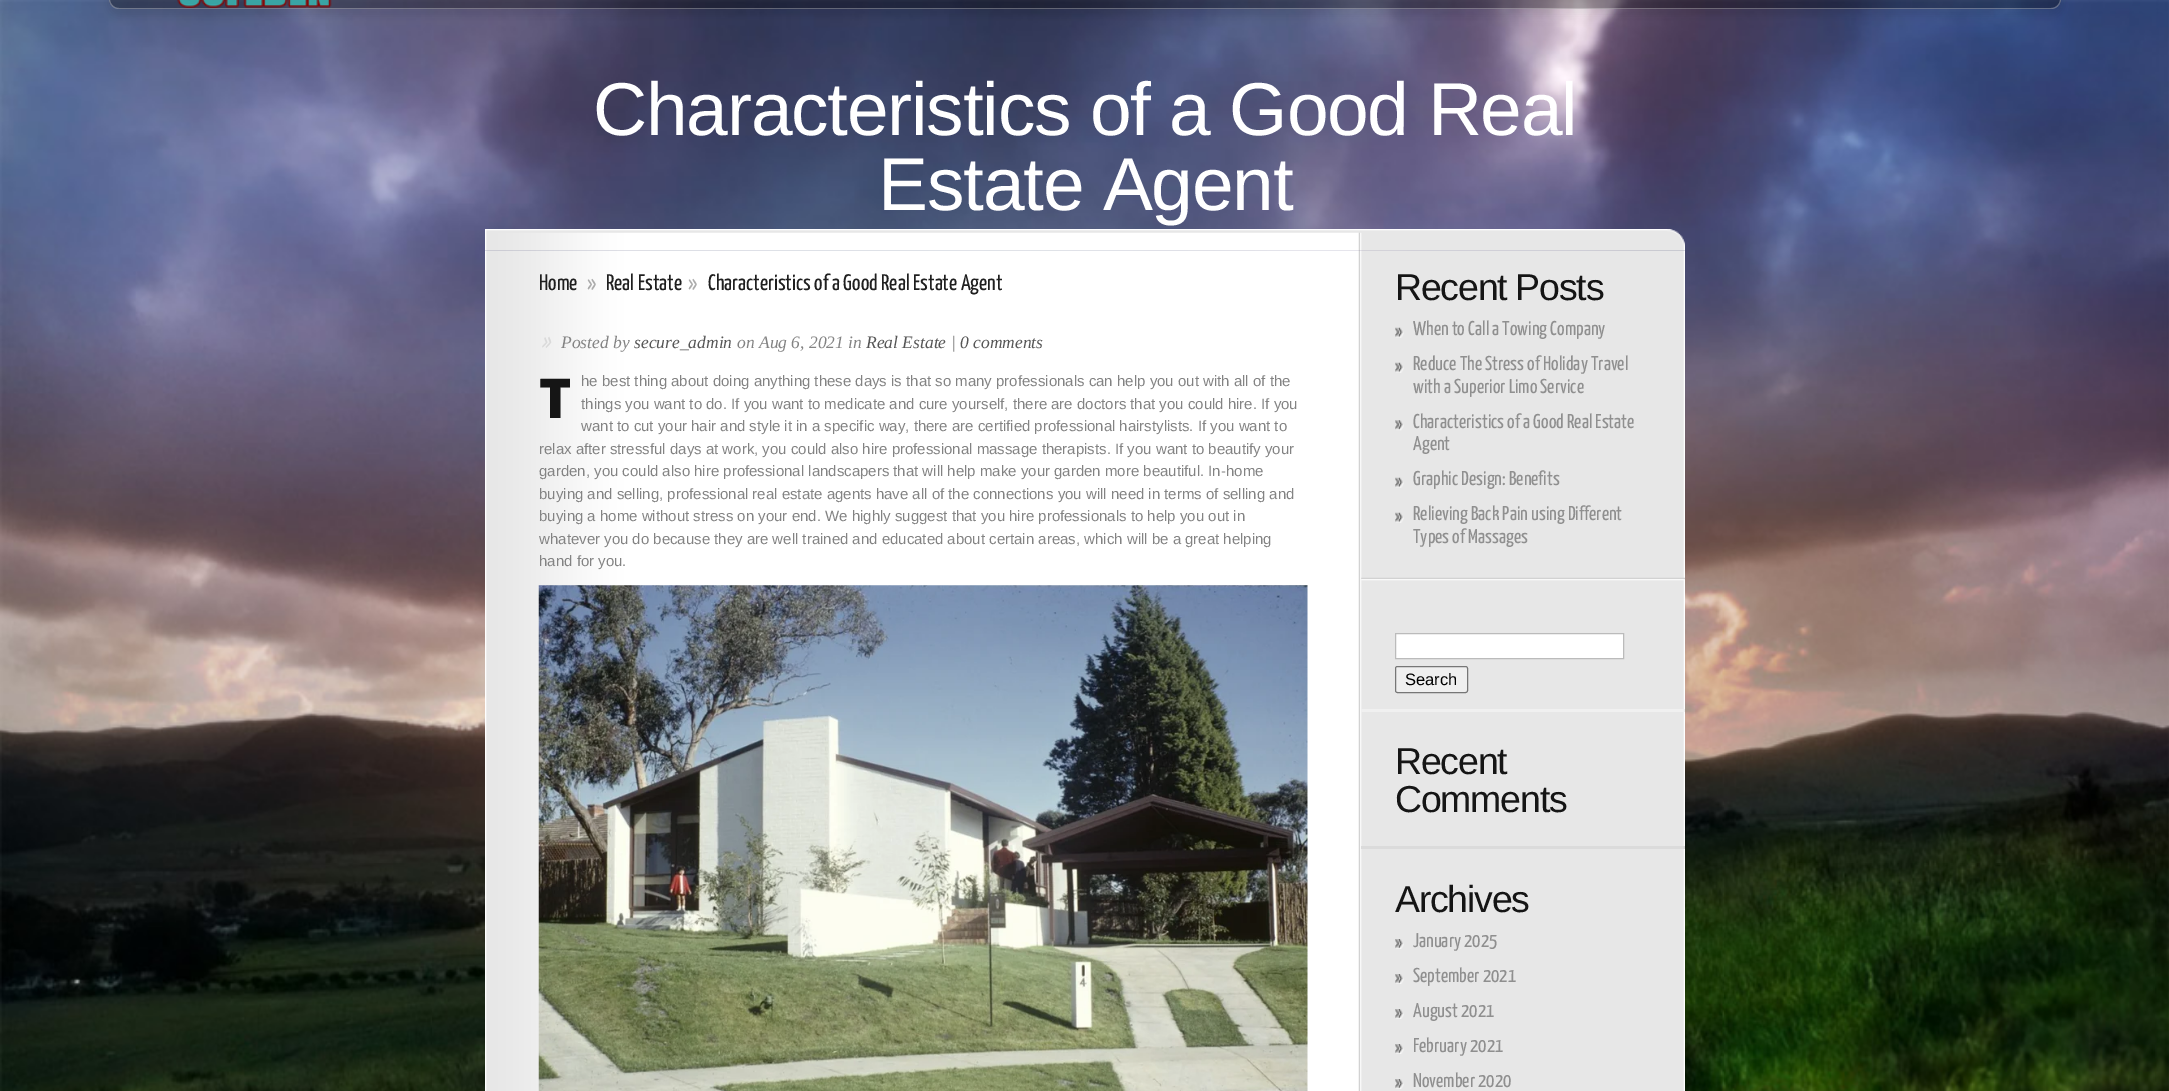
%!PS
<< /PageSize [2169 1091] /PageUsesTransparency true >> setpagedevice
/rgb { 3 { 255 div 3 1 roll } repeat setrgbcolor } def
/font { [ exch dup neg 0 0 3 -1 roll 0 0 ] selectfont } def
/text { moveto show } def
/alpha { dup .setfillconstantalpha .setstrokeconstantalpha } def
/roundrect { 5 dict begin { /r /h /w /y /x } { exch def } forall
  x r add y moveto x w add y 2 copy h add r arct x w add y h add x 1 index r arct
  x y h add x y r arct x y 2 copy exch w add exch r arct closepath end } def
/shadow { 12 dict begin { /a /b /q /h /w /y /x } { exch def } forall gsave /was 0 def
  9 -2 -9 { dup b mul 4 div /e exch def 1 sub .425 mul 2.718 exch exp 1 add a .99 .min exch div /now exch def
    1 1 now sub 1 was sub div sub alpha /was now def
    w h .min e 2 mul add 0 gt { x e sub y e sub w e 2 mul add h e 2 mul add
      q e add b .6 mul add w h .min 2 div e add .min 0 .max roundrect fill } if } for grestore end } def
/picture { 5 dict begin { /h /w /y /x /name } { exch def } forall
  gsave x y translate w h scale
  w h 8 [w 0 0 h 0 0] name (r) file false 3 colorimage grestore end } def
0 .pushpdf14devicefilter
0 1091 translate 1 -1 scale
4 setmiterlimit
255 255 255 rgb
0 0 2169 1091 rectfill
(img_01.rgb) 0 0 2169 1091 picture
gsave
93 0 moveto 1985 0 rlineto 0 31 rlineto -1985 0 rlineto closepath 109 -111 moveto 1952 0 rlineto 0 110 rlineto 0 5.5 -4.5 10 -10 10 rcurveto -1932 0 rlineto -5.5 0 -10 -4.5 -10 -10 rcurveto closepath eoclip newpath
0 0 0 rgb
108 -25 1955 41 11 4.5 0.1 shadow
grestore
(img_02.rgb) 109 0 1952 9 picture
0.3 alpha
109 -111 moveto 1952 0 rlineto 0 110 rlineto 0 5 -4 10 -10 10 rcurveto -1932 0 rlineto -6 0 -10 -5 -10 -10 rcurveto closepath 110 -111 moveto 1950 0 rlineto 0 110 rlineto 0 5 -4 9 -9 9 rcurveto -1932 0 rlineto -5 0 -9 -4 -9 -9 rcurveto closepath eofill
1 alpha
(img_03.rgb) 177 0 155 8 picture
(img_04.rgb) 485 229 1200 22 picture
(img_05.rgb) 485 250 1200 841 picture
(img_06.rgb) 538 585 770 506 picture
(img_07.rgb) 1361 577 324 4 picture
(img_08.rgb) 1395 327 9 11 picture
(img_08.rgb) 1395 362 9 11 picture
(img_09.rgb) 1395 420 9 11 picture
(img_08.rgb) 1395 477 9 11 picture
(img_08.rgb) 1395 512 9 11 picture
240 240 240 rgb
1361 709 324 3 rectfill
255 255 255 rgb
1395.5 633.5 moveto 228 0 rlineto 0 25 rlineto -228 0 rlineto closepath gsave fill grestore
187 187 187 rgb
stroke
239 239 239 rgb
1395.5 666.5 72 26 2 roundrect gsave fill grestore
118 118 118 rgb
stroke
219 219 219 rgb
1361 846 324 3 rectfill
(img_10.rgb) 1395 939 9 10 picture
(img_10.rgb) 1395 974 9 10 picture
(img_10.rgb) 1395 1009 9 10 picture
(img_10.rgb) 1395 1044 9 10 picture
(img_10.rgb) 1395 1079 9 10 picture
/LiberationSans-Regular 75 font
255 255 255 rgb
593 135 moveto -1.25 0 (Characteristics of a Good Real) ashow
878 210 moveto -1.25 0 (Estate Agent) ashow
/YanoneKaffeesatz-ExtraLight 22.5 font
31 31 31 rgb
(Home) 539 290 text
172 172 172 rgb
(») 587 290 text
31 31 31 rgb
(Real Estate) 606 290 text
172 172 172 rgb
(») 688 290 text
31 31 31 rgb
(Characteristics of a Good Real Estate Agent) 708 290 text
/YanoneKaffeesatz-ExtraLightItalic 22.5 font
218 218 218 rgb
(») 541 348 text
/LiberationSerif-Italic 17.5 font
131 131 131 rgb
(Posted by) 561 348 text
86 86 86 rgb
(secure_admin) 634 348 text
131 131 131 rgb
(on Aug 6, 2021 in) 737 348 text
86 86 86 rgb
(Real Estate) 866 348 text
131 131 131 rgb
(|) 951 348 text
86 86 86 rgb
(0 comments) 960 348 text
/NotoSans-Black 55 font
21 21 21 rgb
(T) 539 418 text
/LiberationSans-Regular 15 font
131 131 131 rgb
(he best thing about doing anything these days is that so many professionals can help you out with all of the) 581 386 text
(things you want to do. If you want to medicate and cure yourself, there are doctors that you could hire. If you) 581 409 text
(want to cut your hair and style it in a specific way, there are certified professional hairstylists. If you want to) 581 431 text
(relax after stressful days at work, you could also hire professional massage therapists. If you want to beautify your) 539 454 text
(garden, you could also hire professional landscapers that will help make your garden more beautiful. In-home) 539 476 text
(buying and selling, professional real estate agents have all of the connections you will need in terms of selling and) 539 499 text
(buying a home without stress on your end. We highly suggest that you hire professionals to help you out in) 539 521 text
(whatever you do because they are well trained and educated about certain areas, which will be a great helping) 539 544 text
(hand for you.) 539 566 text
/LiberationSans-Regular 37.5 font
21 21 21 rgb
1395 300 moveto -1.25 0 (Recent Posts) ashow
/YanoneKaffeesatz-ExtraLight 20 font
143 143 143 rgb
(When to Call a Towing Company) 1413 335 text
(Reduce The Stress of Holiday Travel) 1413 370 text
(with a Superior Limo Service) 1413 393 text
(Characteristics of a Good Real Estate) 1413 428 text
(Agent) 1413 450 text
(Graphic Design: Benefits) 1413 485 text
(Relieving Back Pain using Different) 1413 520 text
(Types of Massages) 1413 543 text
/LiberationSans-Regular 16.5 font
0 0 0 rgb
(Search) 1405 685 text
/LiberationSans-Regular 37.5 font
21 21 21 rgb
1395 774 moveto -1.25 0 (Recent) ashow
1395 812 moveto -1.25 0 (Comments) ashow
1395 912 moveto -1.25 0 (Archives) ashow
/YanoneKaffeesatz-ExtraLight 20 font
143 143 143 rgb
(January 2025) 1413 947 text
(September 2021) 1413 982 text
(August 2021) 1413 1017 text
(February 2021) 1413 1052 text
(November 2020) 1413 1087 text
.poppdf14devicefilter showpage
